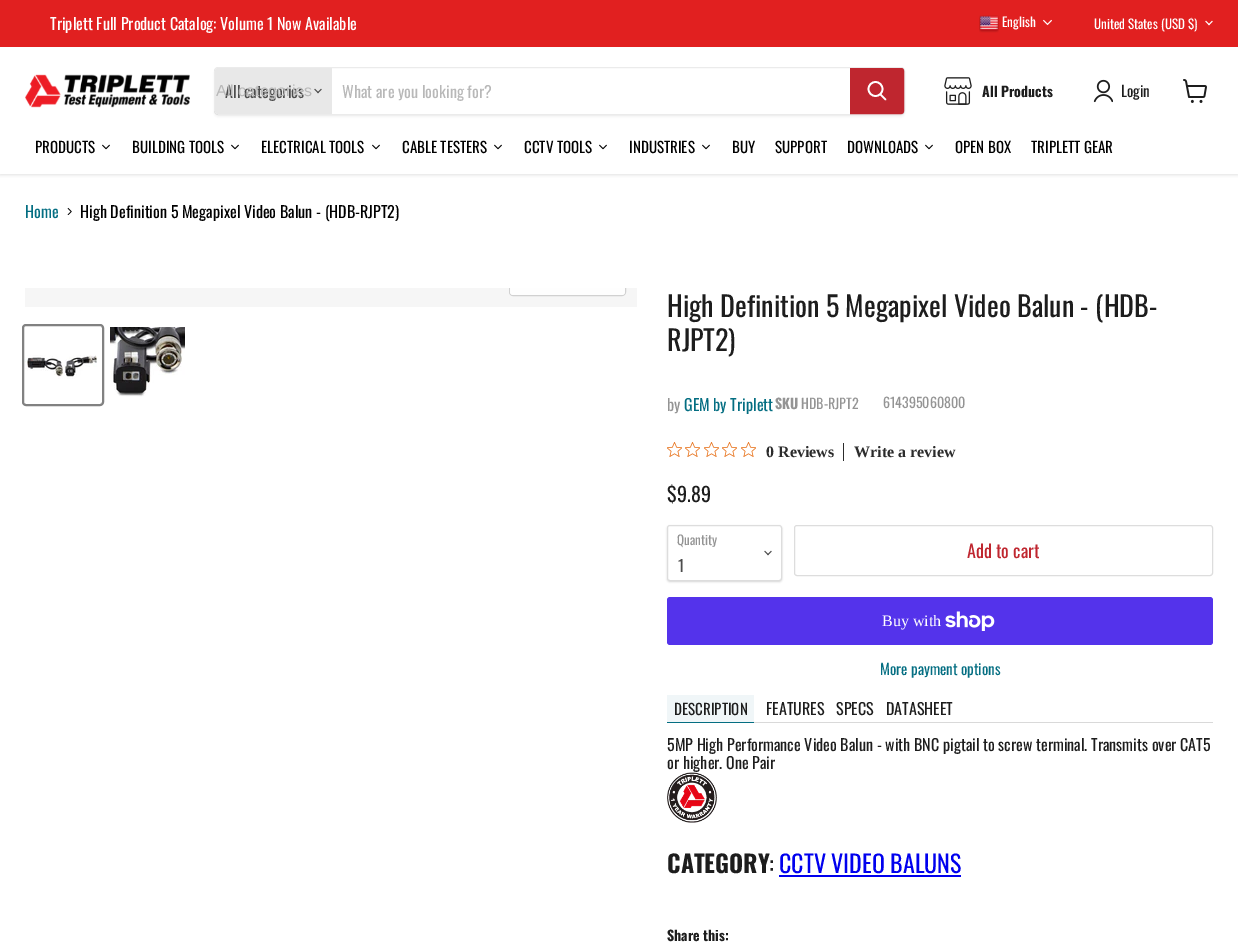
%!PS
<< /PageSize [1238 943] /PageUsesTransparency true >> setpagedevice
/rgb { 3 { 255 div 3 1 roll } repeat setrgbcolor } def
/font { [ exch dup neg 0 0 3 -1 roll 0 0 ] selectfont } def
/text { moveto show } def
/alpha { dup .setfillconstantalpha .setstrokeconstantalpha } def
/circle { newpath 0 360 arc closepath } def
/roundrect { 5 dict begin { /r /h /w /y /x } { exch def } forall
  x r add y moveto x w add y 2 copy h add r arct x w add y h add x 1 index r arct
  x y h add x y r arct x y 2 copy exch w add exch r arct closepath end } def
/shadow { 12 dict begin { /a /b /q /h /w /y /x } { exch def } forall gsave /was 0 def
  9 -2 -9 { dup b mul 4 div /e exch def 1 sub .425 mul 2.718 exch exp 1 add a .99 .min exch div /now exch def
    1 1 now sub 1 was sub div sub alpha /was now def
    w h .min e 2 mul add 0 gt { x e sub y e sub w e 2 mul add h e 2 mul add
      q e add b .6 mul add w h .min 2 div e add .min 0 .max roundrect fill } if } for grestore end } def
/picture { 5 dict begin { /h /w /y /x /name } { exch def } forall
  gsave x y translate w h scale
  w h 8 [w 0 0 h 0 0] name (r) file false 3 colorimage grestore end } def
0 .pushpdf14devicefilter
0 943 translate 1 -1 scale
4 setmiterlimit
255 255 255 rgb
0 0 1238 943 rectfill
240 246 248 rgb
667 695 87 27 rectfill
gsave
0 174 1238 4 rectclip
128 128 128 rgb
0 49 1238 126 0 2 0.25 shadow
grestore
225 32 32 rgb
0 0 1238 47 rectfill
255 255 255 rgb
0 47 1238 1 rectfill
(img_01.rgb) 979 15 20 18 picture
(img_02.rgb) 1043 19 9 7 picture
(img_03.rgb) 1205 20 8 6 picture
(img_04.rgb) 25 74 165 34 picture
gsave
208 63 moveto 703 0 rlineto 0 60 rlineto -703 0 rlineto closepath 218 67 moveto 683 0 rlineto 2 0 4 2 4 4 rcurveto 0 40 rlineto 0 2 -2 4 -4 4 rcurveto -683 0 rlineto -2 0 -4 -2 -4 -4 rcurveto 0 -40 rlineto 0 -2 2 -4 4 -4 rcurveto closepath eoclip newpath
128 128 128 rgb
214 69 691 48 4 1.5 0.11 shadow
grestore
0.16 alpha
128 128 128 rgb
214.5 67.5 690 47 3.5 roundrect stroke
1 alpha
232 232 232 rgb
218 68 moveto 114 0 rlineto 0 46 rlineto -114 0 rlineto -1.5 0 -3 -1.5 -3 -3 rcurveto 0 -40 rlineto 0 -1.5 1.5 -3 3 -3 rcurveto closepath fill
(img_05.rgb) 314 88 8 6 picture
191 38 47 rgb
850.5 68.5 moveto 50.5 0 rlineto 1.5 0 2.5 1 2.5 2.5 rcurveto 0 40 rlineto 0 1.5 -1 2.5 -2.5 2.5 rcurveto -50.5 0 rlineto closepath gsave fill grestore
stroke
255 255 255 rgb
1.7 setlinewidth
1 setlinecap
885.5 99.5 moveto -5 -5 rlineto stroke
0 setlinecap
875.5 89 7 circle stroke
(img_06.rgb) 944 77 28 28 picture
(img_07.rgb) 1093 79 20 24 picture
(img_08.rgb) 1183 79 24 24 picture
(img_09.rgb) 102 144 8 6 picture
(img_09.rgb) 231 144 8 6 picture
(img_09.rgb) 372 144 8 6 picture
(img_09.rgb) 494 144 8 6 picture
(img_09.rgb) 599 144 8 6 picture
(img_09.rgb) 702 144 8 6 picture
(img_09.rgb) 925 144 8 6 picture
(img_10.rgb) 67 207 5 8 picture
246 246 246 rgb
25 288 612 19 rectfill
gsave
25 288 612 19 rectclip
209 209 209 rgb
1 setlinewidth
509.5 266.5 116 29 3.5 roundrect stroke
grestore
0.9 alpha
255 255 255 rgb
510 288 moveto 115 0 rlineto 0 4 rlineto 0 1.5 -1.5 3 -3 3 rcurveto -109 0 rlineto -1.5 0 -3 -1.5 -3 -3 rcurveto closepath fill
1 alpha
129 129 129 rgb
2 setlinewidth
23 325 80 80 3 roundrect stroke
(img_11.rgb) 25 355 72 24 picture
(img_12.rgb) 110 327 75 70 picture
(img_13.rgb) 667 442 15 15 picture
(img_13.rgb) 685 442 15 15 picture
(img_13.rgb) 704 442 15 15 picture
(img_13.rgb) 722 442 15 15 picture
(img_13.rgb) 741 442 15 15 picture
44 44 44 rgb
843 443 1 18 rectfill
0 0 0 rgb
667 526 115 56 3 1 0.15 shadow
255 255 255 rgb
667.5 525.5 114 55 2.5 roundrect gsave fill grestore
221 221 221 rgb
1 setlinewidth
stroke
(img_14.rgb) 764 550 8 6 picture
794.5 525.5 418 50 2.5 roundrect stroke
84 51 235 rgb
667 597 546 48 3 roundrect fill
(img_15.rgb) 945 611 50 20 picture
217 217 217 rgb
754 722 459 1 rectfill
4 110 130 rgb
667 722 87 1 rectfill
(img_16.rgb) 667 772 50 51 picture
0 0 238 rgb
779 875 182 2 rectfill
/Oswald-Regular 16 font
255 255 255 rgb
(Triplett Full Product Catalog: Volume 1 Now Available) 50 30 text
/Oswald-Regular 13 font
(English) 1002 27 text
(United States \(USD $\)) 1094 29 text
/Oswald-Regular 16 font
77 77 77 rgb
(All categories) 225 98 text
/LiberationSans-Regular 16 font
184 184 184 rgb
(All categories) 216 96 text
/Oswald-Regular 16 font
(What are you looking for?) 342 98 text
/Oswald-Bold 14 font
29 29 29 rgb
(All Products) 982 97 text
/Oswald-Regular 15 font
(Login) 1121 97 text
0 0 0 rgb
(PRODUCTS) 35 153 text
(BUILDING TOOLS) 132 153 text
(ELECTRICAL TOOLS) 261 153 text
(CABLE TESTERS) 402 153 text
(CCTV TOOLS) 524 153 text
(INDUSTRIES) 629 153 text
(BUY) 732 153 text
(SUPPORT) 775 153 text
(DOWNLOADS) 847 153 text
(OPEN BOX) 955 153 text
(TRIPLETT GEAR) 1031 153 text
/Oswald-Regular 16 font
4 110 130 rgb
(Home) 25 218 text
0 0 0 rgb
(High Definition 5 Megapixel Video Balun - \(HDB-RJPT2\)) 80 218 text
/Oswald-Regular 28 font
29 29 29 rgb
(High Definition 5 Megapixel Video Balun - \(HDB-) 667 317 text
(RJPT2\)) 667 351 text
/Oswald-Regular 16 font
148 148 148 rgb
(by) 667 411 text
4 110 130 rgb
(GEM by Triplett) 684 411 text
/Oswald-Bold 14 font
148 148 148 rgb
(SKU) 775 409 text
/Oswald-Regular 14 font
(HDB-RJPT2) 801 409 text
(614395060800) 883 408 text
/LiberationSerif-Bold 16 font
44 44 44 rgb
(0 Reviews) 766 457 text
(Write a review) 854 457 text
/Oswald-Regular 20 font
29 29 29 rgb
($9.89) 667 502 text
/Oswald-Regular 13 font
148 148 148 rgb
(Quantity) 677 545 text
/Oswald-Regular 16 font
77 77 77 rgb
(1) 678 572 text
/Oswald-Regular 18 font
191 38 47 rgb
(Add to cart) 967 558 text
/LiberationSerif-Regular 16 font
255 255 255 rgb
(Buy with) 882 626 text
/Oswald-Regular 15 font
4 110 130 rgb
(More payment options) 880 675 text
29 29 29 rgb
(DESCRIPTION) 674 715 text
/Oswald-Regular 16 font
(FEATURES) 766 715 text
(SPECS) 836 715 text
(DATASHEET) 886 715 text
(5MP High Performance Video Balun - with BNC pigtail to screw terminal. Transmits over CAT5) 667 751 text
(or higher. One Pair) 667 769 text
/Oswald-Bold 24 font
(CATEGORY) 667 873 text
/Oswald-Regular 24 font
(:) 769 873 text
0 0 238 rgb
(CCTV VIDEO BALUNS) 779 873 text
/Oswald-Bold 14 font
29 29 29 rgb
(Share this:) 667 941 text
.poppdf14devicefilter showpage
